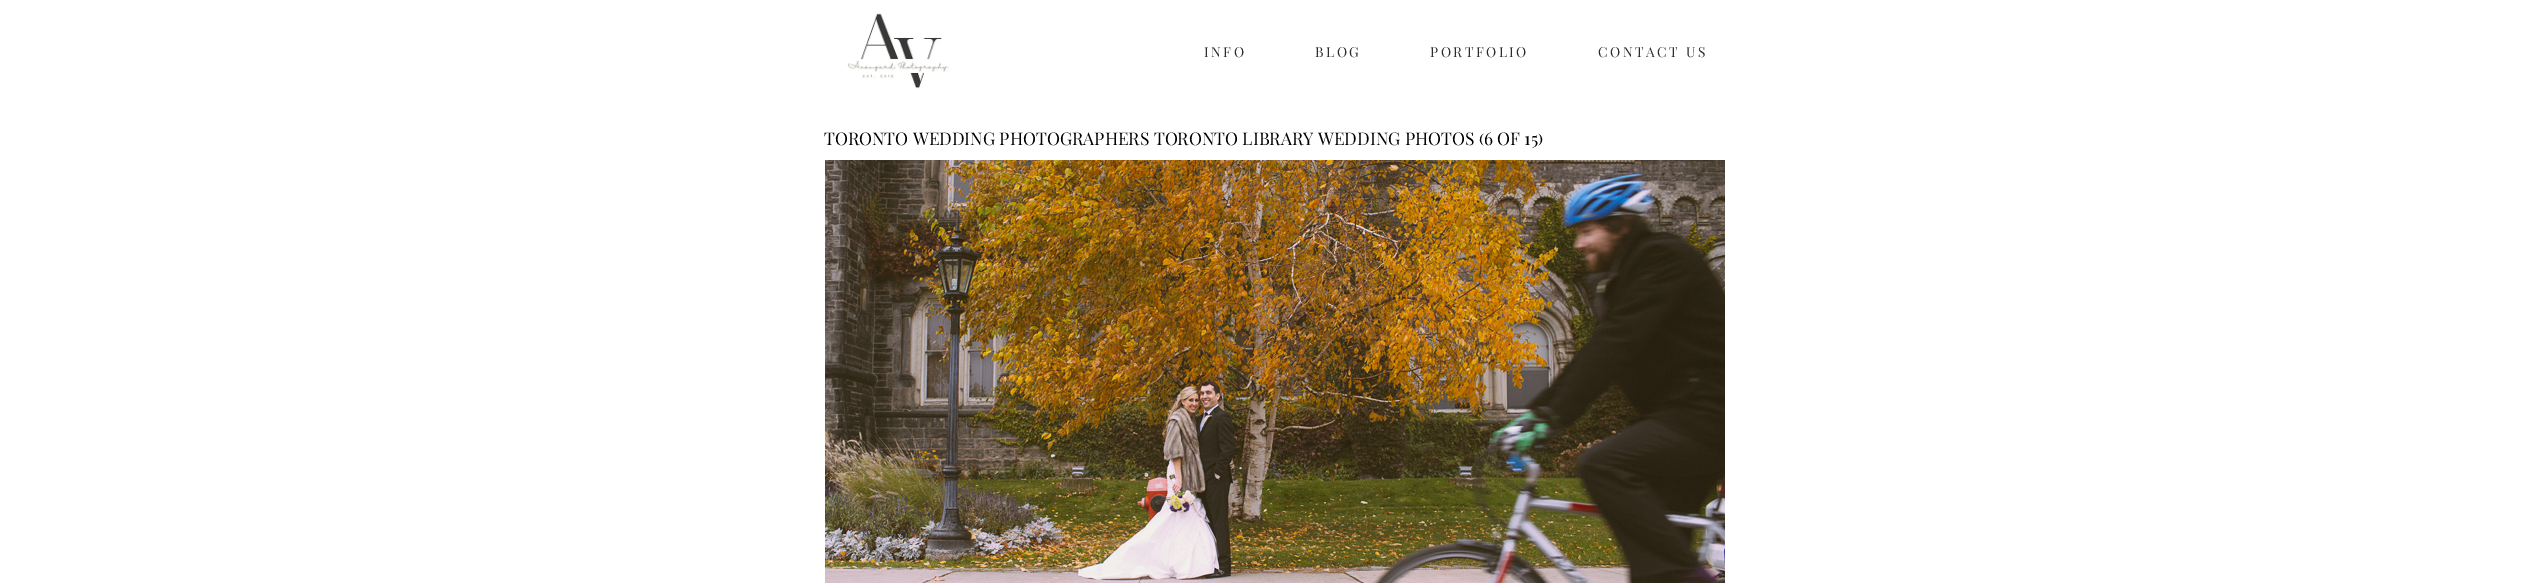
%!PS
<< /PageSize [2548 583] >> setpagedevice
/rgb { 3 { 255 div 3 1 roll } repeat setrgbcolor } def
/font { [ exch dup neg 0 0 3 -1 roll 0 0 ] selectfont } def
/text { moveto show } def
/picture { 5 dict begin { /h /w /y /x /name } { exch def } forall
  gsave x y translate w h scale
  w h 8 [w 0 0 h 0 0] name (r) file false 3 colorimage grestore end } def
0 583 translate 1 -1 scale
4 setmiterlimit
255 255 255 rgb
0 0 2548 583 rectfill
(img_01.rgb) 847 13 102 76 picture
(img_02.rgb) 825 160 900 423 picture
/PlayfairDisplaySC-Regular 13.75 font
43 43 43 rgb
1204 57 moveto 2.5 0 (INFO) ashow
1315 57 moveto 2.5 0 (BLOG) ashow
1430 57 moveto 2.5 0 (PORTFOLIO) ashow
1598 57 moveto 2.5 0 (CONTACT US) ashow
/PlayfairDisplaySC-Regular 17.5 font
0 0 0 rgb
(TORONTO WEDDING PHOTOGRAPHERS TORONTO LIBRARY WEDDING PHOTOS \(6 OF 15\)) 824 145 text
showpage
